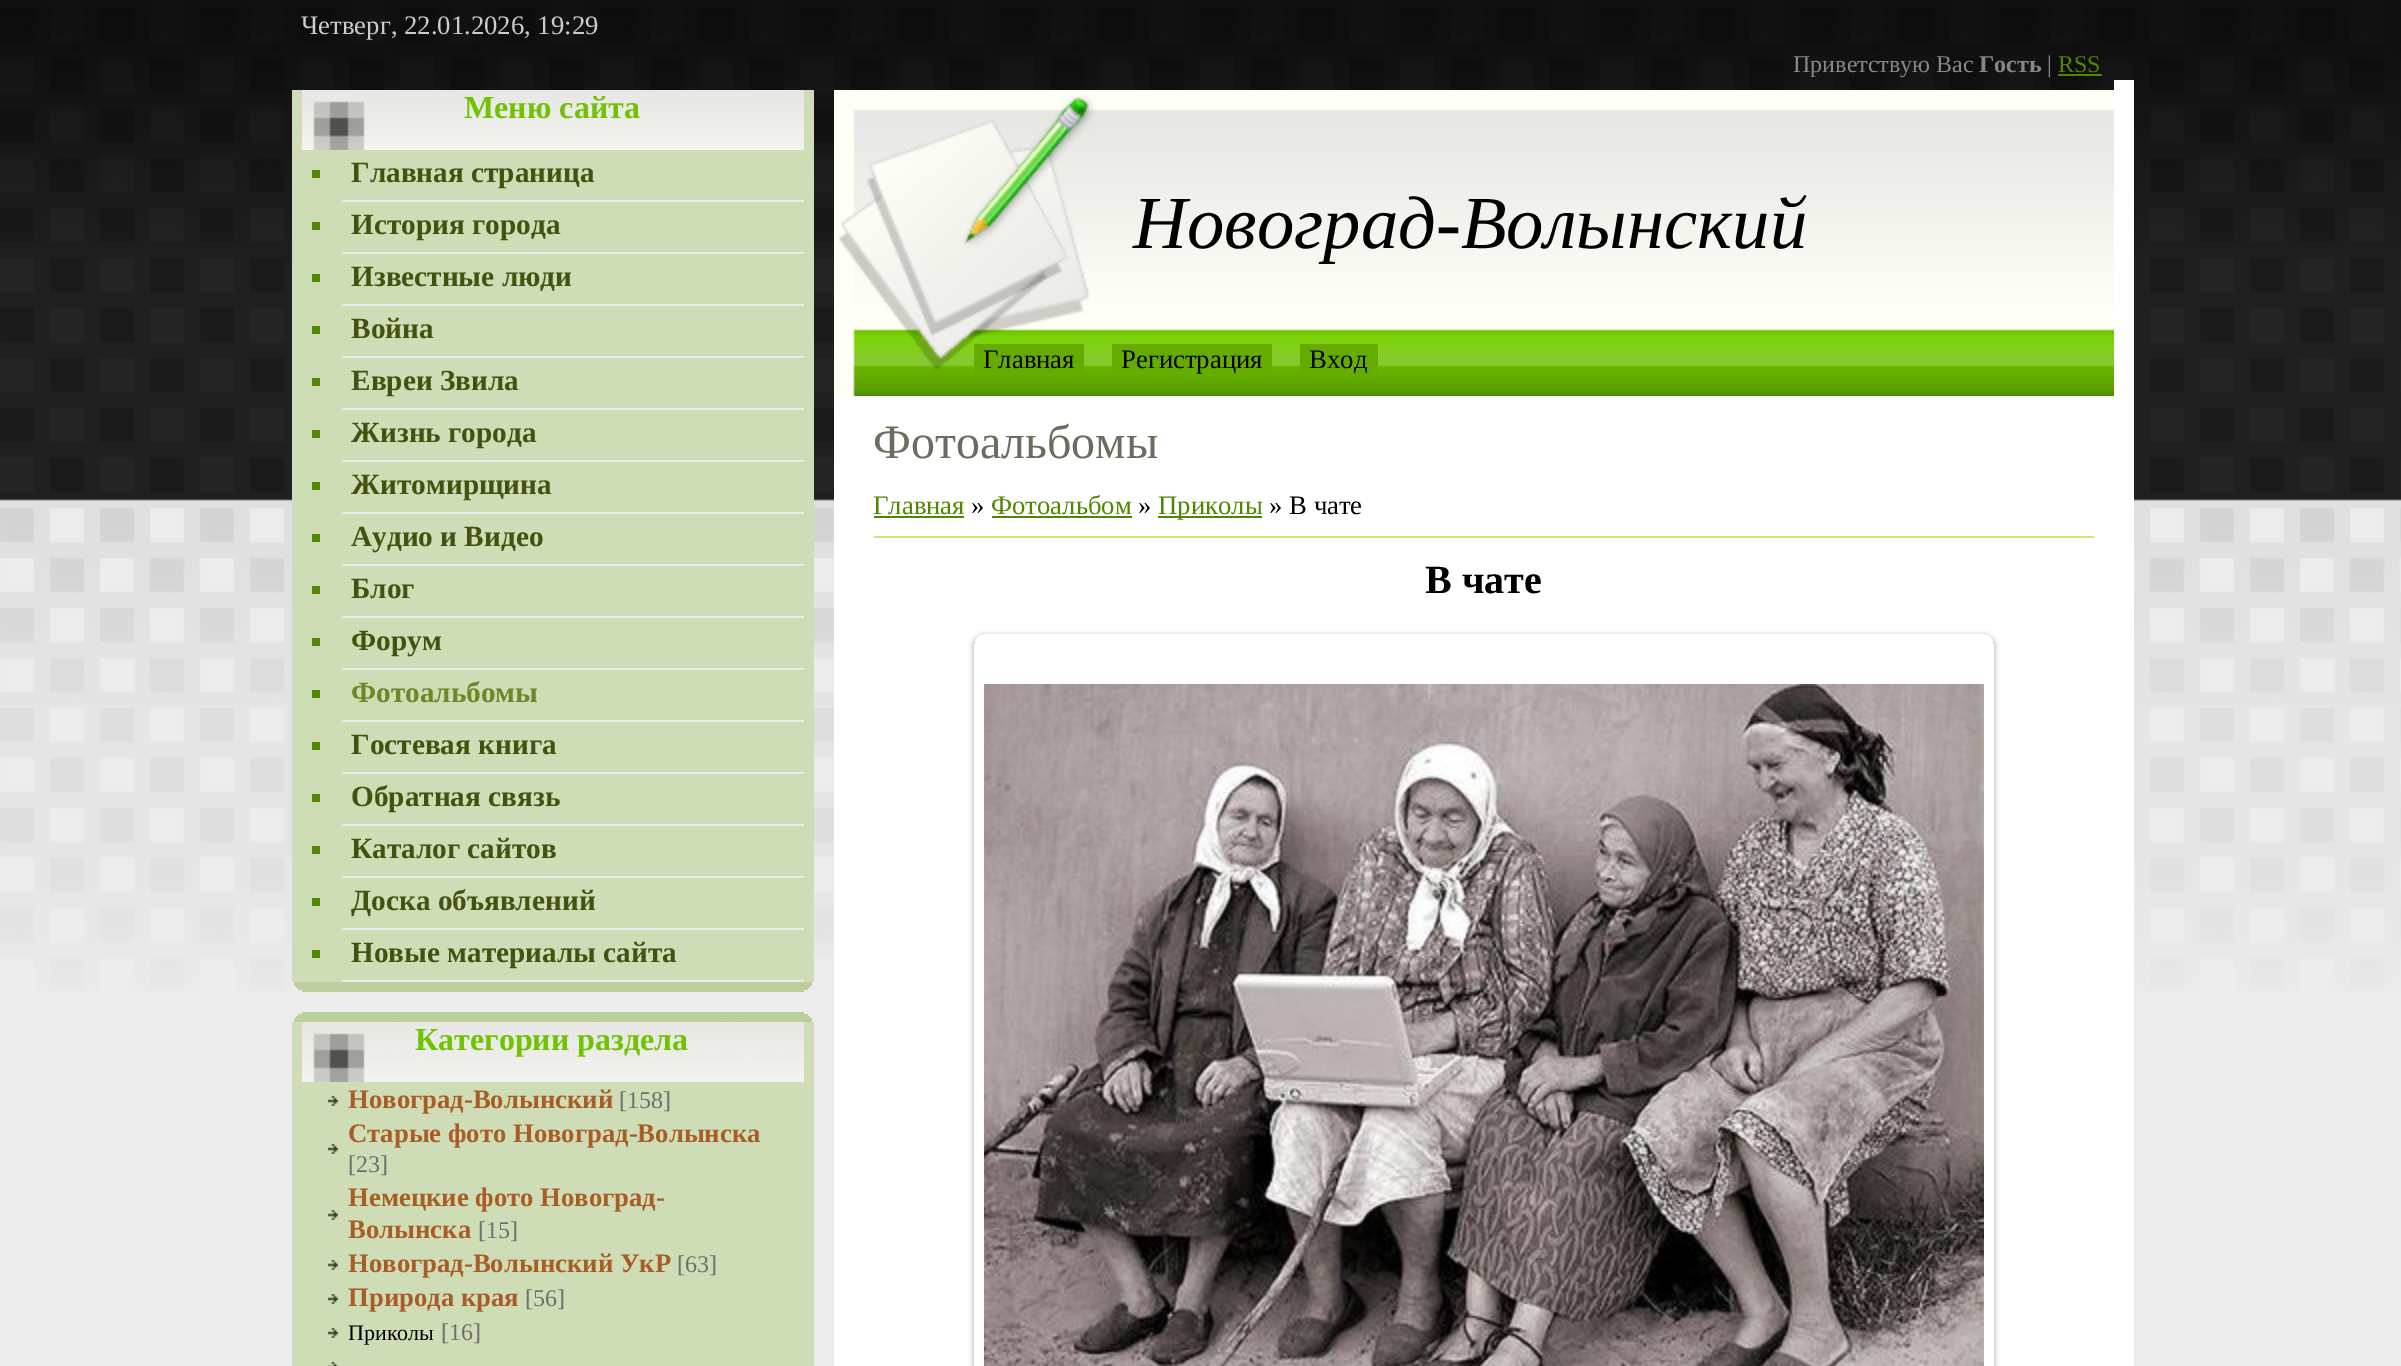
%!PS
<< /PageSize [2401 1366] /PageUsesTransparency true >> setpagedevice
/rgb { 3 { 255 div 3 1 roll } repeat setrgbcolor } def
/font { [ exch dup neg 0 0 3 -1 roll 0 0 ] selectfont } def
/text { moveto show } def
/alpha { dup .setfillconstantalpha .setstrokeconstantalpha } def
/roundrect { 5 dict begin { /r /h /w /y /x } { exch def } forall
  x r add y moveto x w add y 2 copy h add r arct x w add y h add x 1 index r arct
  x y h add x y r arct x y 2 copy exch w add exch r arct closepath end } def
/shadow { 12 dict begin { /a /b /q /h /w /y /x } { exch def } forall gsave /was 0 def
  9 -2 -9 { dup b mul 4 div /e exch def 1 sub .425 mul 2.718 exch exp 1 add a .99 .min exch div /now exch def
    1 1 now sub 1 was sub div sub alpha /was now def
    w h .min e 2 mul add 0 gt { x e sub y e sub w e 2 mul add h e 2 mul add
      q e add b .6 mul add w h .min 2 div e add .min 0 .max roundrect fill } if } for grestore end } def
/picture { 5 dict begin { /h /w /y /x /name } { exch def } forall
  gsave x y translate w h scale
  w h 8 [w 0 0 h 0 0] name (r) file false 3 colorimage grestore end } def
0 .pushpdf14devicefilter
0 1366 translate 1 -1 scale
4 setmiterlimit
236 236 236 rgb
0 0 2401 1366 rectfill
(img_01.rgb) 0 0 2401 991 picture
78 135 0 rgb
2058 74 44 2 rectfill
237 237 237 rgb
292 982 508 9 rectfill
207 221 183 rgb
292 90 522 892 rectfill
(img_02.rgb) 302 90 502 60 picture
236 236 236 rgb
342 200 462 2 rectfill
78 135 0 rgb
312 170 8 8 rectfill
236 236 236 rgb
342 252 462 2 rectfill
78 135 0 rgb
312 222 8 8 rectfill
236 236 236 rgb
342 304 462 2 rectfill
78 135 0 rgb
312 274 8 8 rectfill
236 236 236 rgb
342 356 462 2 rectfill
78 135 0 rgb
312 326 8 8 rectfill
236 236 236 rgb
342 408 462 2 rectfill
78 135 0 rgb
312 378 8 8 rectfill
236 236 236 rgb
342 460 462 2 rectfill
78 135 0 rgb
312 430 8 8 rectfill
236 236 236 rgb
342 512 462 2 rectfill
78 135 0 rgb
312 482 8 8 rectfill
236 236 236 rgb
342 564 462 2 rectfill
78 135 0 rgb
312 534 8 8 rectfill
236 236 236 rgb
342 616 462 2 rectfill
78 135 0 rgb
312 586 8 8 rectfill
236 236 236 rgb
342 668 462 2 rectfill
78 135 0 rgb
312 638 8 8 rectfill
236 236 236 rgb
342 720 462 2 rectfill
78 135 0 rgb
312 690 8 8 rectfill
236 236 236 rgb
342 772 462 2 rectfill
78 135 0 rgb
312 742 8 8 rectfill
236 236 236 rgb
342 824 462 2 rectfill
78 135 0 rgb
312 794 8 8 rectfill
236 236 236 rgb
342 876 462 2 rectfill
78 135 0 rgb
312 846 8 8 rectfill
236 236 236 rgb
342 928 462 2 rectfill
78 135 0 rgb
312 898 8 8 rectfill
236 236 236 rgb
342 980 462 2 rectfill
78 135 0 rgb
312 950 8 8 rectfill
187 206 156 rgb
294 982 518 4 rectfill
296 986 514 2 rectfill
298 988 510 2 rectfill
302 990 502 2 rectfill
302 1012 502 2 rectfill
298 1014 510 2 rectfill
296 1016 514 2 rectfill
294 1018 518 4 rectfill
207 221 183 rgb
292 1022 522 344 rectfill
(img_02.rgb) 302 1022 502 60 picture
(img_03.rgb) 328 1096 10 10 picture
(img_03.rgb) 328 1144 10 10 picture
(img_03.rgb) 328 1210 10 10 picture
(img_03.rgb) 328 1260 10 10 picture
(img_03.rgb) 328 1294 10 10 picture
(img_03.rgb) 328 1328 10 10 picture
(img_04.rgb) 328 1362 10 4 picture
255 255 255 rgb
834 396 1280 970 rectfill
2114 80 20 1286 rectfill
(img_05.rgb) 834 90 1280 306 picture
100 173 0 rgb
974 344 110 29 rectfill
1112 344 160 29 rectfill
1300 344 78 29 rectfill
78 135 0 rgb
874 516 90 2 rectfill
992 516 140 2 rectfill
1158 516 104 2 rectfill
214 227 125 rgb
874 536 1220 2 rectfill
gsave
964 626 moveto 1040 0 rlineto 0 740 rlineto -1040 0 rlineto closepath 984 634 moveto 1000 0 rlineto 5.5 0 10 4.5 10 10 rcurveto 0 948 rlineto 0 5.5 -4.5 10 -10 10 rcurveto -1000 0 rlineto -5.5 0 -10 -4.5 -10 -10 rcurveto 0 -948 rlineto 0 -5.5 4.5 -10 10 -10 rcurveto closepath eoclip newpath
0 0 0 rgb
974 636 1020 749 10 3 0.37 shadow
grestore
(img_06.rgb) 984 684 1000 682 picture
/LiberationSerif-Regular 26.7 font
204 204 204 rgb
(Четверг, 22.01.2026, 19:29) 301 34 text
/LiberationSerif-Regular 24 font
136 136 136 rgb
(Приветствую Вас) 1793 72 text
/LiberationSerif-Bold 24 font
(Гость) 1979 72 text
/LiberationSerif-Regular 24 font
(|) 2047 72 text
78 135 0 rgb
(RSS) 2058 72 text
/LiberationSerif-Bold 32 font
113 194 0 rgb
(Меню сайта) 464 118 text
/LiberationSerif-Bold 29.25 font
67 82 14 rgb
(Главная страница) 351 182 text
(История города) 351 234 text
(Известные люди) 351 286 text
(Война) 351 338 text
(Евреи Звила) 351 390 text
(Жизнь города) 351 442 text
(Житомирщина) 351 494 text
(Аудио и Видео) 351 546 text
(Блог) 351 598 text
(Форум) 351 650 text
112 133 37 rgb
(Фотоальбомы) 351 702 text
67 82 14 rgb
(Гостевая книга) 351 754 text
(Обратная связь) 351 806 text
(Каталог сайтов) 351 858 text
(Доска объявлений) 351 910 text
(Новые материалы сайта) 351 962 text
/LiberationSerif-Bold 32 font
113 194 0 rgb
(Категории раздела) 415 1050 text
/LiberationSerif-Bold 26.7 font
168 92 38 rgb
(Новоград-Волынский) 348 1108 text
/LiberationSerif-Regular 24 font
110 110 110 rgb
([158]) 619 1108 text
/LiberationSerif-Bold 26.7 font
168 92 38 rgb
(Старые фото Новоград-Волынска) 348 1142 text
/LiberationSerif-Regular 24 font
110 110 110 rgb
([23]) 348 1172 text
/LiberationSerif-Bold 26.7 font
168 92 38 rgb
(Немецкие фото Новоград-) 348 1206 text
(Волынска) 348 1238 text
/LiberationSerif-Regular 24 font
110 110 110 rgb
([15]) 478 1238 text
/LiberationSerif-Bold 26.7 font
168 92 38 rgb
(Новоград-Волынский УкР) 348 1272 text
/LiberationSerif-Regular 24 font
110 110 110 rgb
([63]) 677 1272 text
/LiberationSerif-Bold 26.7 font
168 92 38 rgb
(Природа края) 348 1306 text
/LiberationSerif-Regular 24 font
110 110 110 rgb
([56]) 525 1306 text
/LiberationSerif-Regular 22 font
0 0 0 rgb
(Приколы) 348 1340 text
/LiberationSerif-Regular 24 font
110 110 110 rgb
([16]) 441 1340 text
/LiberationSerif-Italic 74.75 font
0 0 0 rgb
(Новоград-Волынский) 1133 248 text
/LiberationSerif-Regular 26.7 font
(Главная) 983 368 text
(Регистрация) 1121 368 text
(Вход) 1309 368 text
/LiberationSerif-Regular 48 font
107 109 94 rgb
(Фотоальбомы) 873 458 text
/LiberationSerif-Regular 26.7 font
78 135 0 rgb
(Главная) 873 514 text
0 0 0 rgb
(») 971 514 text
78 135 0 rgb
(Фотоальбом) 991 514 text
0 0 0 rgb
(») 1138 514 text
78 135 0 rgb
(Приколы) 1158 514 text
0 0 0 rgb
(» В чате) 1269 514 text
/LiberationSerif-Bold 40 font
(В чате) 1425 593 text
.poppdf14devicefilter showpage
